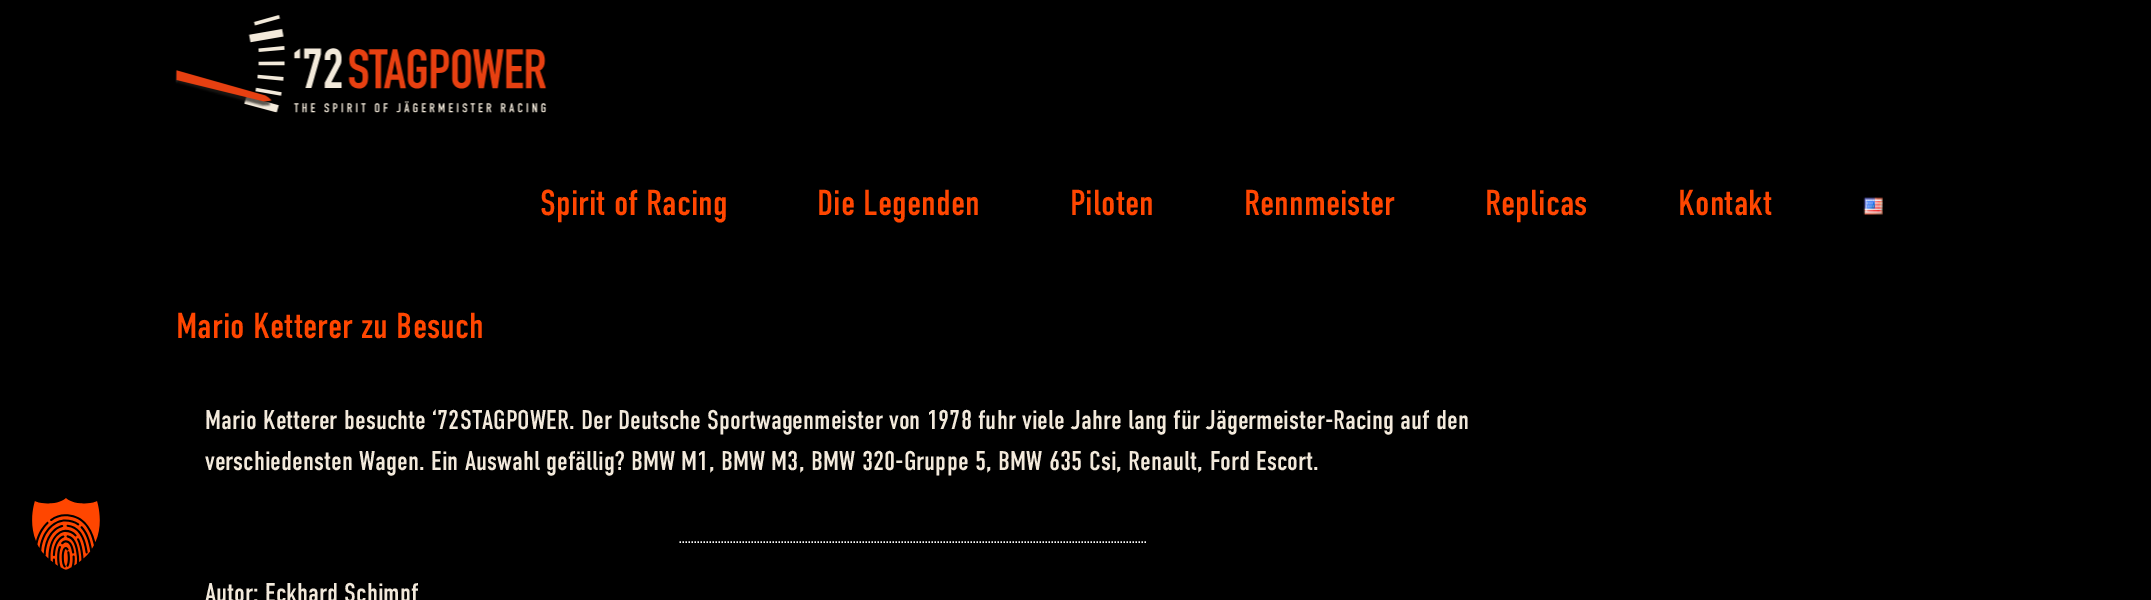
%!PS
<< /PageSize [2151 600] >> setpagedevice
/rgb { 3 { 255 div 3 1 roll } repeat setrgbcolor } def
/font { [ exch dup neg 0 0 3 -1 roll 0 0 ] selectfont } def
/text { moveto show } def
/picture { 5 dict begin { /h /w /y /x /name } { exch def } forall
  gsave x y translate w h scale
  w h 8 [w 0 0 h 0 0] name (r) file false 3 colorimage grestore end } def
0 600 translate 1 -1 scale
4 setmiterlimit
0 0 0 rgb
0 0 2151 600 rectfill
(img_01.rgb) 32 498 68 72 picture
(img_02.rgb) 175 15 372 98 picture
(img_03.rgb) 1863 197 20 18 picture
255 255 255 rgb
1.5 setlinewidth
[1.5 1.5] 0 setdash
679.5 542 moveto 466.5 0 rlineto stroke
/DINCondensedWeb-Regular 36 font
255 70 0 rgb
(Spirit of Racing) 540 215 text
(Die Legenden) 817 215 text
(Piloten) 1070 215 text
(Rennmeister) 1244 215 text
(Replicas) 1485 215 text
(Kontakt) 1678 215 text
(Mario Ketterer zu Besuch) 176 338 text
/DINCondensedWeb-Regular 27 font
242 233 219 rgb
(Mario Ketterer besuchte ‘72STAGPOWER. Der Deutsche Sportwagenmeister von 1978 fuhr viele Jahre lang für Jägermeister-Racing auf den) 205 429 text
(verschiedensten Wagen. Ein Auswahl gefällig? BMW M1, BMW M3, BMW 320-Gruppe 5, BMW 635 Csi, Renault, Ford Escort.) 205 470 text
(Autor: Eckhard Schimpf) 205 602 text
showpage
